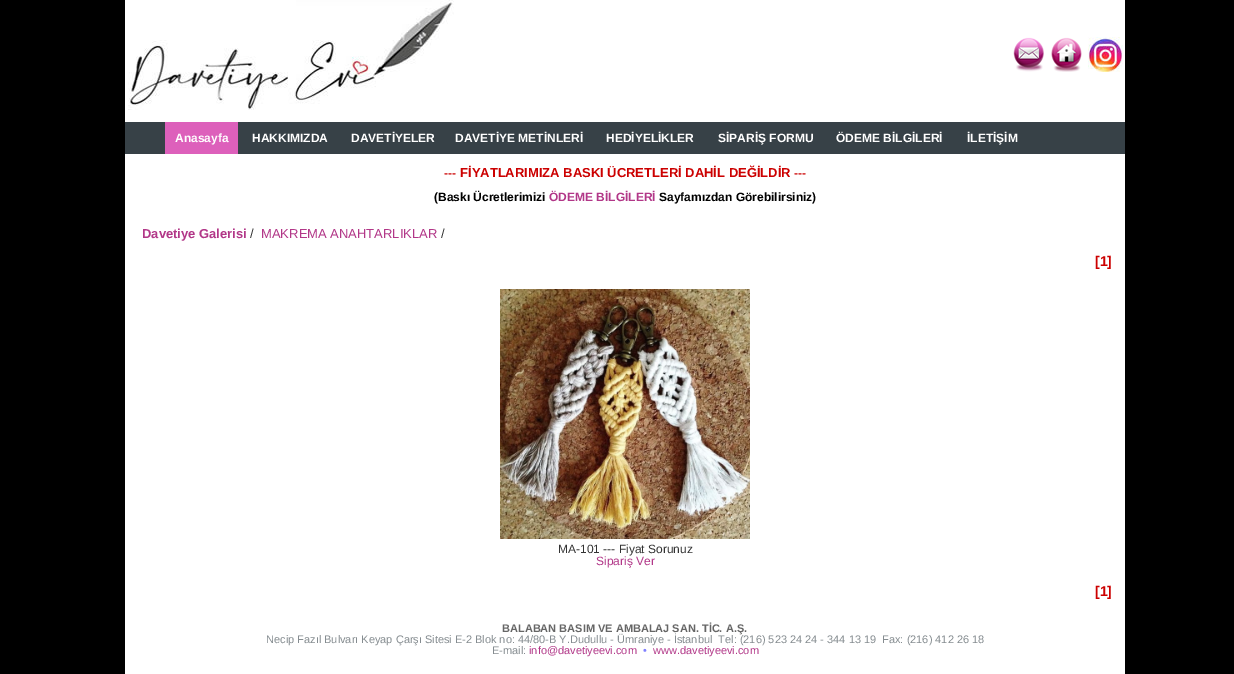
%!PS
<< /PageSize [1234 674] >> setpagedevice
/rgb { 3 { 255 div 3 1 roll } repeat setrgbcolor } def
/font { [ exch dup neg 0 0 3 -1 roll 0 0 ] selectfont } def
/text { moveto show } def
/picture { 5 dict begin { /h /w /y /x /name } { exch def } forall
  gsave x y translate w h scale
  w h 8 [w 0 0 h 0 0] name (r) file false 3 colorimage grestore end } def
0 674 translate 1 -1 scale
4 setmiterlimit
0 0 0 rgb
0 0 1234 674 rectfill
255 255 255 rgb
125 0 1000 674 rectfill
(img_01.rgb) 128 0 326 110 picture
(img_02.rgb) 1013 37 31 35 picture
(img_03.rgb) 1051 37 31 35 picture
(img_04.rgb) 1088 37 35 35 picture
55 65 71 rgb
125 122 1000 32 rectfill
221 96 187 rgb
165 122 73 32 rectfill
(img_05.rgb) 500 289 250 250 picture
/LiberationSans-Bold 12 font
255 255 255 rgb
(Anasayfa) 175 142 text
(HAKKIMIZDA) 252 142 text
(DAVETİYELER) 351 142 text
(DAVETİYE METİNLERİ) 455 142 text
(HEDİYELİKLER) 606 142 text
(SİPARİŞ FORMU) 718 142 text
(ÖDEME BİLGİLERİ) 836 142 text
(İLETİŞİM) 967 142 text
204 0 0 rgb
(---) 444 177 text
/LiberationSans-Bold 13 font
(FİYATLARIMIZA BASKI ÜCRETLERİ DAHİL DEĞİLDİR) 460 177 text
/LiberationSans-Bold 12 font
(---) 794 177 text
0 0 0 rgb
(\(Baskı Ücretlerimizi) 434 201 text
178 55 136 rgb
(ÖDEME BİLGİLERİ) 549 201 text
0 0 0 rgb
(Sayfamızdan Görebilirsiniz\)) 659 201 text
/LiberationSans-Bold 13 font
178 55 136 rgb
(Davetiye Galerisi) 142 238 text
/LiberationSans-Regular 13 font
51 51 51 rgb
(/) 250 238 text
178 55 136 rgb
(MAKREMA ANAHTARLIKLAR) 261 238 text
51 51 51 rgb
(/) 441 238 text
/LiberationSans-Bold 14 font
204 0 0 rgb
([1]) 1095 266 text
/LiberationSans-Regular 12 font
51 51 51 rgb
(MA-101 --- Fiyat Sorunuz) 558 553 text
178 55 136 rgb
(Sipariş Ver) 596 565 text
/LiberationSans-Bold 14 font
204 0 0 rgb
([1]) 1095 596 text
/LiberationSans-Bold 11 font
102 102 102 rgb
(BALABAN BASIM VE AMBALAJ SAN. TİC. A.Ş.) 502 632 text
/LiberationSans-Regular 11 font
133 140 144 rgb
(Necip Fazıl Bulvarı Keyap Çarşı Sitesi E-2 Blok no: 44/80-B Y.Dudullu - Ümraniye - İstanbul  Tel: \(216\) 523 24 24 - 344 13 19  Fax: \(216\) 412 26 18) 266 643 text
(E-mail:) 492 654 text
178 55 136 rgb
(info@davetiyeevi.com) 529 654 text
128 128 255 rgb
(•) 643 654 text
178 55 136 rgb
(www.davetiyeevi.com) 653 654 text
showpage
